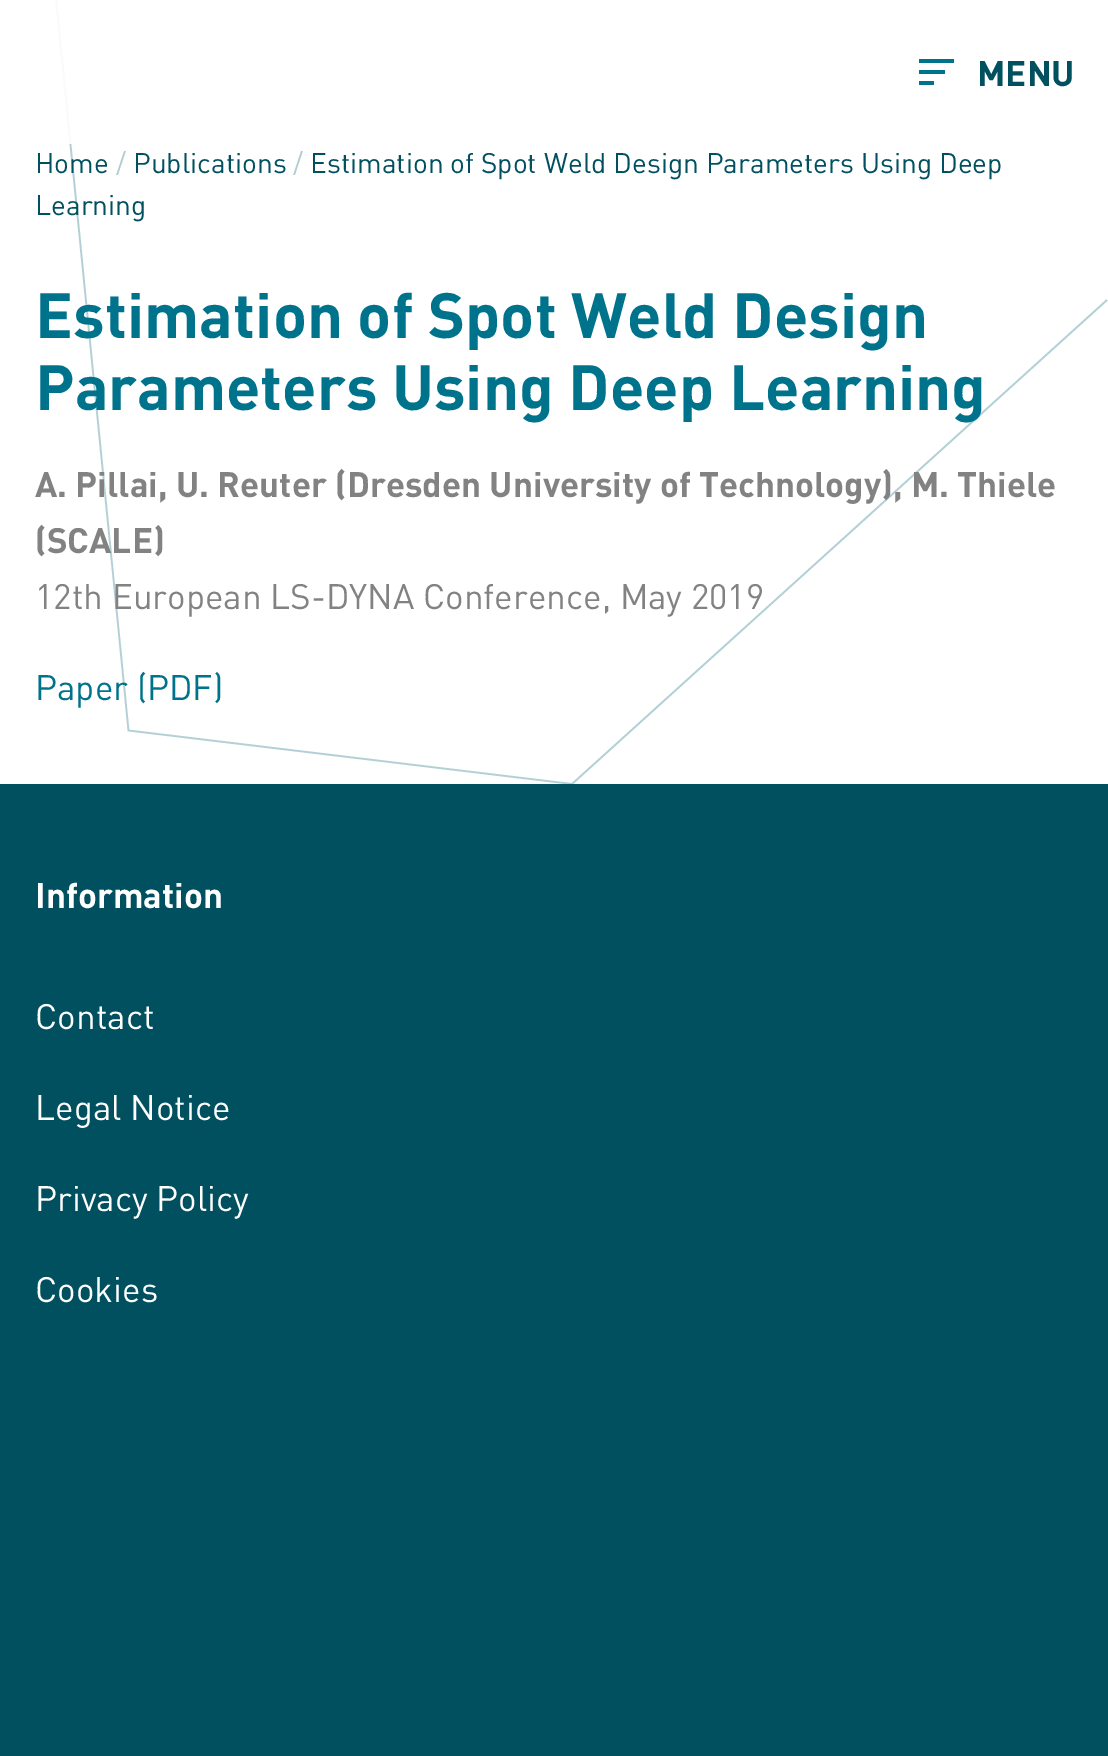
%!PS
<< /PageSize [1108 1756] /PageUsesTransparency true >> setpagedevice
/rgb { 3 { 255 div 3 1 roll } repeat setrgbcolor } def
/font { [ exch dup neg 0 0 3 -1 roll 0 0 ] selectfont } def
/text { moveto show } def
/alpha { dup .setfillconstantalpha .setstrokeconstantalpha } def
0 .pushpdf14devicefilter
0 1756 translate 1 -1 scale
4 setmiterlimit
255 255 255 rgb
0 0 1108 1756 rectfill
gsave
0 0 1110 784 rectclip
179 208 214 rgb
1.7 setlinewidth
1107 -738 moveto -1103.5 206 rlineto 125 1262.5 rlineto 443.5 53.5 rlineto 535 -484 rlineto stroke
grestore
0.9 alpha
55 0 17 144 rectfill
1 alpha
0 115 140 rgb
919 59 35 4 rectfill
919 70 26 4 rectfill
919 81 15 4 rectfill
0 80 95 rgb
0 784 1108 972 rectfill
/DIN-Bold 35 font
(MENU) 977 86 text
/DIN-Regular 28 font
(Home) 35 173 text
179 203 207 rgb
(/) 116 173 text
0 80 95 rgb
(Publications) 133 173 text
179 203 207 rgb
(/) 293 173 text
0 80 95 rgb
(Estimation of Spot Weld Design Parameters Using Deep) 310 173 text
(Learning) 35 215 text
/DIN-Bold 63 font
0 115 140 rgb
(Estimation of Spot Weld Design) 35 338 text
(Parameters Using Deep Learning) 35 410 text
/DIN-Bold 35 font
130 130 130 rgb
(A. Pillai, U. Reuter \(Dresden University of Technology\), M. Thiele) 35 497 text
(\(SCALE\)) 35 553 text
/DIN-Regular 35 font
(12th European LS-DYNA Conference, May 2019) 35 609 text
0 115 140 rgb
(Paper \(PDF\)) 35 700 text
/DIN-Bold 35 font
255 255 255 rgb
(Information) 35 908 text
/DIN-Regular 35 font
(Contact) 35 1029 text
(Legal Notice) 35 1120 text
(Privacy Policy) 35 1211 text
(Cookies) 35 1302 text
.poppdf14devicefilter showpage
